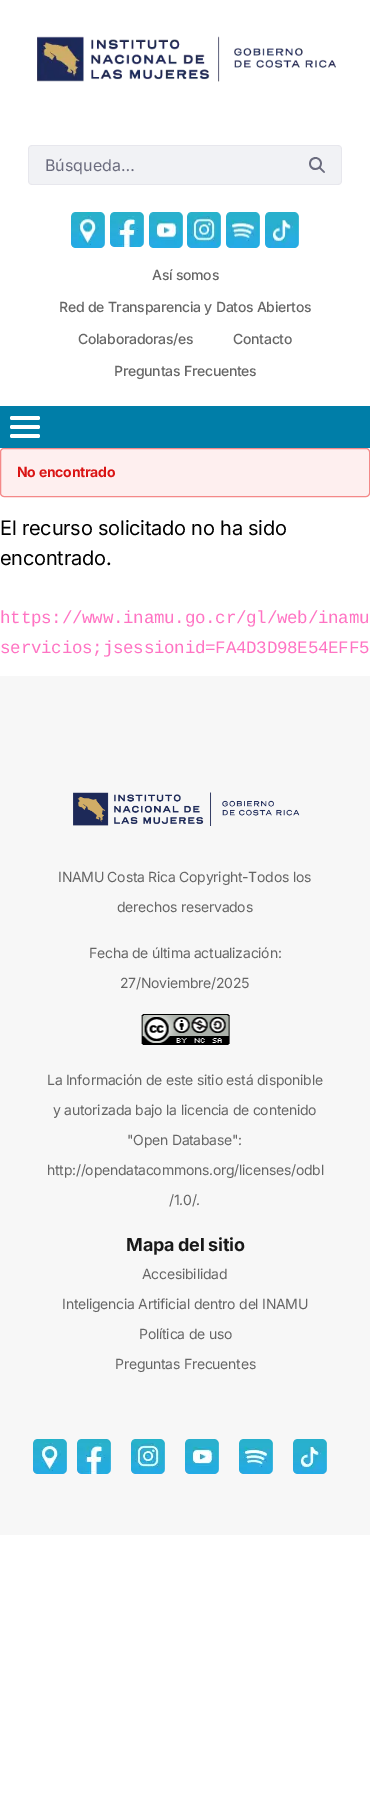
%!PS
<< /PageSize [370 1816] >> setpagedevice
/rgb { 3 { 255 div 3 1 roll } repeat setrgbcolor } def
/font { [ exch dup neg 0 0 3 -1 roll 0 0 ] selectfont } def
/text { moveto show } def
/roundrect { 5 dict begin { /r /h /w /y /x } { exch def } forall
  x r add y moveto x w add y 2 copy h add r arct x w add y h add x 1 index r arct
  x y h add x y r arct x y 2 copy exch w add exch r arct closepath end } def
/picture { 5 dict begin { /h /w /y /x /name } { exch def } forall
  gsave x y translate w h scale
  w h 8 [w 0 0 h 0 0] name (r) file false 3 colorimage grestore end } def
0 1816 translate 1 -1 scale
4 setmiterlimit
255 255 255 rgb
0 0 370 1816 rectfill
(img_01.rgb) 37 36 299 46 picture
241 242 245 rgb
32 146 moveto 261 0 rlineto 0 38 rlineto -261 0 rlineto -1.5 0 -3 -1.5 -3 -3 rcurveto 0 -32 rlineto 0 -1.5 1.5 -3 3 -3 rcurveto closepath fill
231 231 237 rgb
32 145 moveto 261 0 rlineto 0 40 rlineto -261 0 rlineto -2 0 -4 -2 -4 -4 rcurveto 0 -32 rlineto 0 -2 2 -4 4 -4 rcurveto closepath 32 146 moveto 261 0 rlineto 0 38 rlineto -261 0 rlineto -2 0 -3 -1 -3 -3 rcurveto 0 -32 rlineto 0 -2 1 -3 3 -3 rcurveto closepath eofill
241 242 245 rgb
293 146 moveto 45 0 rlineto 1.5 0 3 1.5 3 3 rcurveto 0 32 rlineto 0 1.5 -1.5 3 -3 3 rcurveto -45 0 rlineto closepath fill
231 231 237 rgb
293 145 moveto 45 0 rlineto 2 0 4 2 4 4 rcurveto 0 32 rlineto 0 2 -2 4 -4 4 rcurveto -45 0 rlineto closepath 293 146 moveto 45 0 rlineto 2 0 3 1 3 3 rcurveto 0 32 rlineto 0 2 -1 3 -3 3 rcurveto -45 0 rlineto closepath eofill
(img_02.rgb) 309 157 16 16 picture
(img_03.rgb) 71 212 34 36 picture
(img_04.rgb) 110 212 34 35 picture
(img_05.rgb) 149 212 34 36 picture
(img_06.rgb) 187 212 34 36 picture
(img_07.rgb) 226 212 34 36 picture
(img_08.rgb) 265 212 34 36 picture
0 126 168 rgb
0 406 370 42 rectfill
255 255 255 rgb
10 416 30 4 2 roundrect fill
10 425 30 4 2 roundrect fill
10 434 30 4 2 roundrect fill
254 239 239 rgb
0.5 448.5 369 48 3.5 roundrect gsave fill grestore
244 137 137 rgb
stroke
247 247 247 rgb
0 676 370 859 rectfill
(img_09.rgb) 73 792 227 34 picture
(img_10.rgb) 141 1014 89 31 picture
(img_11.rgb) 33 1439 34 35 picture
(img_12.rgb) 77 1439 34 35 picture
(img_13.rgb) 131 1439 34 35 picture
(img_14.rgb) 185 1439 34 35 picture
(img_15.rgb) 239 1439 34 35 picture
(img_16.rgb) 293 1439 34 35 picture
/Inter-Regular 16 font
107 108 126 rgb
(Búsqueda…) 45 171 text
/Inter-Medium 14 font
102 102 102 rgb
152 280 moveto -0.25 0 (Así somos) ashow
59 312 moveto -0.25 0 (Red de Transparencia y Datos Abiertos) ashow
78 344 moveto -0.25 0 (Colaboradoras/es) ashow
233 344 moveto -0.25 0 (Contacto) ashow
114 376 moveto -0.25 0 (Preguntas Frecuentes) ashow
/Inter-Bold 14 font
218 20 20 rgb
17 477 moveto -0.25 0 (No encontrado) ashow
/Inter-Regular 20 font
0 0 0 rgb
0 535 moveto -0.25 0 (El recurso solicitado no ha sido) ashow
0 565 moveto -0.25 0 (encontrado.) ashow
/LiberationMono-Regular 17.5 font
255 115 195 rgb
0 623 moveto -0.25 0 (https://www.inamu.go.cr/gl/web/inamu) ashow
0 653 moveto -0.25 0 (servicios;jsessionid=FA4D3D98E54EFF5) ashow
/Inter-Regular 14 font
102 102 102 rgb
58 882 moveto -0.25 0 (INAMU Costa Rica Copyright-Todos los) ashow
117 912 moveto -0.25 0 (derechos reservados) ashow
89 958 moveto -0.25 0 (Fecha de última actualización:) ashow
120 988 moveto -0.25 0 (27/Noviembre/2025) ashow
47 1085 moveto -0.25 0 (La Información de este sitio está disponible) ashow
53 1115 moveto -0.25 0 (y autorizada bajo la licencia de contenido) ashow
127 1145 moveto -0.25 0 ("Open Database":) ashow
47 1175 moveto -0.25 0 (http://opendatacommons.org/licenses/odbl) ashow
169 1205 moveto -0.25 0 (/1.0/.) ashow
/Inter-Bold 18 font
25 25 25 rgb
126 1251 moveto -0.25 0 (Mapa del sitio) ashow
/Inter-Regular 14 font
102 102 102 rgb
142 1279 moveto -0.25 0 (Accesibilidad) ashow
62 1309 moveto -0.25 0 (Inteligencia Artificial dentro del INAMU) ashow
139 1339 moveto -0.25 0 (Política de uso) ashow
115 1369 moveto -0.25 0 (Preguntas Frecuentes) ashow
showpage
